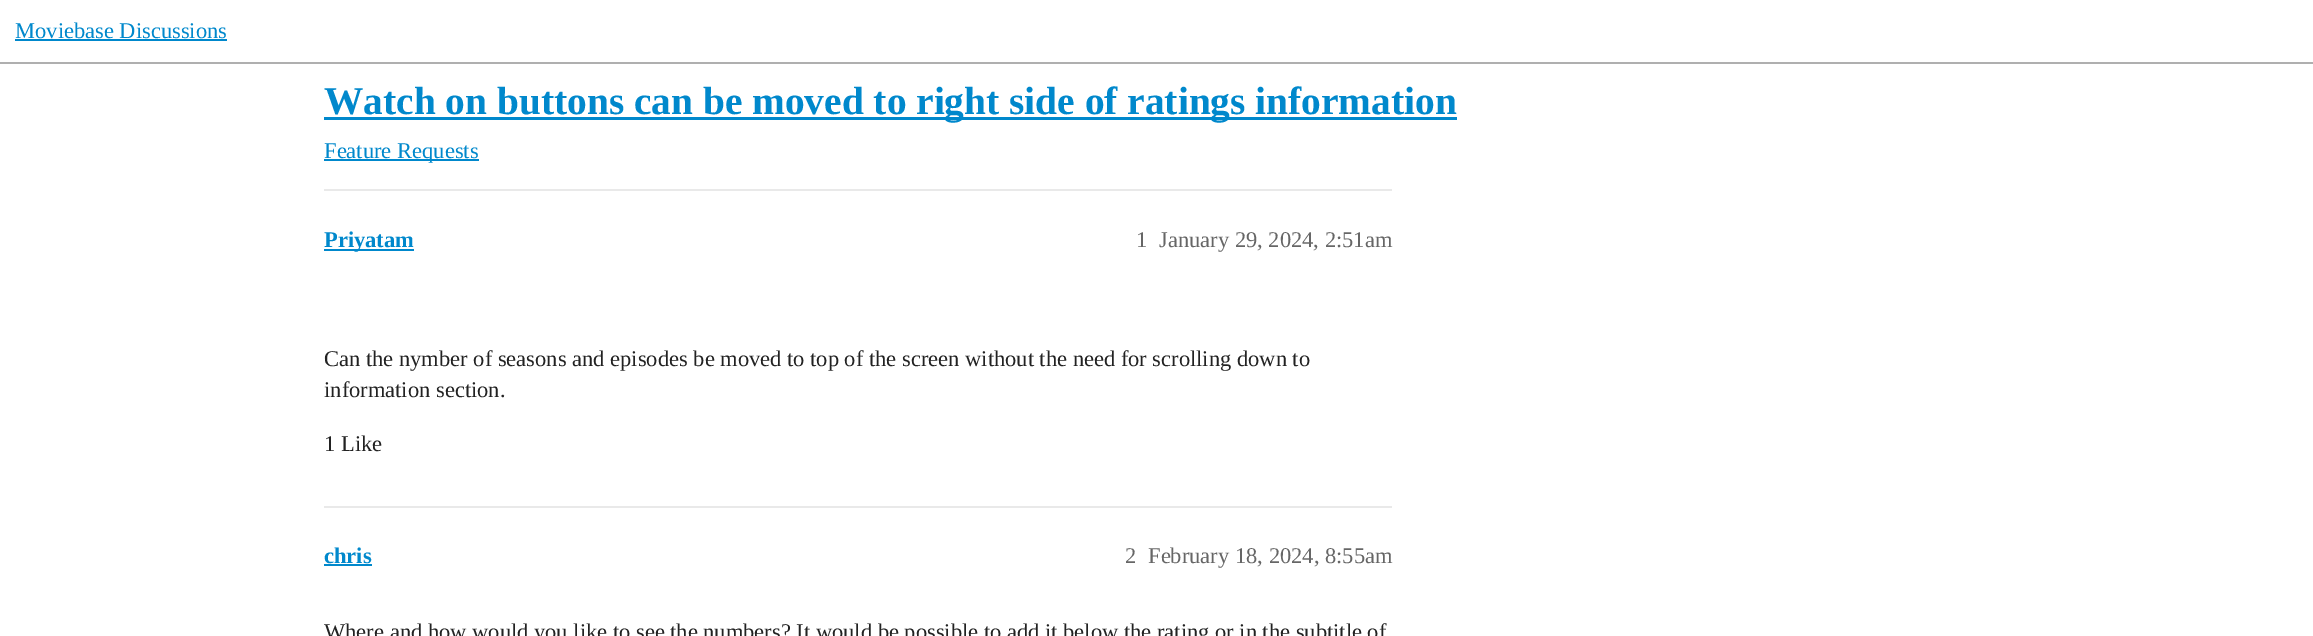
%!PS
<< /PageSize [2313 636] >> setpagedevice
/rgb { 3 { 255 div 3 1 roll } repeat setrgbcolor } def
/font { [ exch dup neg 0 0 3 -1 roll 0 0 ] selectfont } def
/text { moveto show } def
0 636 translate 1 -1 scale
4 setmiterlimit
255 255 255 rgb
0 0 2313 636 rectfill
175 175 175 rgb
0 62 2313 2 rectfill
0 136 204 rgb
15 39 212 2 rectfill
324 117 1133 3 rectfill
324 159 155 2 rectfill
233 233 233 rgb
324 189 1068 2 rectfill
0 136 204 rgb
324 249 90 2 rectfill
233 233 233 rgb
324 506 1068 2 rectfill
0 136 204 rgb
324 564 48 2 rectfill
/LiberationSerif-Regular 22.5 font
(Moviebase Discussions) 15 38 text
/LiberationSerif-Bold 39.4 font
(Watch on buttons can be moved to right side of ratings information) 324 114 text
/LiberationSerif-Regular 22.5 font
(Feature Requests) 324 158 text
/LiberationSerif-Bold 22.5 font
(Priyatam) 324 247 text
/LiberationSerif-Regular 22.5 font
102 102 102 rgb
(1) 1136 247 text
(January 29, 2024, 2:51am) 1159 247 text
34 34 34 rgb
(Can the nymber of seasons and episodes be moved to top of the screen without the need for scrolling down to) 324 366 text
(information section.) 324 397 text
(1 Like) 324 451 text
/LiberationSerif-Bold 22.5 font
0 136 204 rgb
(chris) 324 563 text
/LiberationSerif-Regular 22.5 font
102 102 102 rgb
(2) 1125 563 text
(February 18, 2024, 8:55am) 1148 563 text
34 34 34 rgb
(Where and how would you like to see the numbers? It would be possible to add it below the rating or in the subtitle of) 324 639 text
showpage
